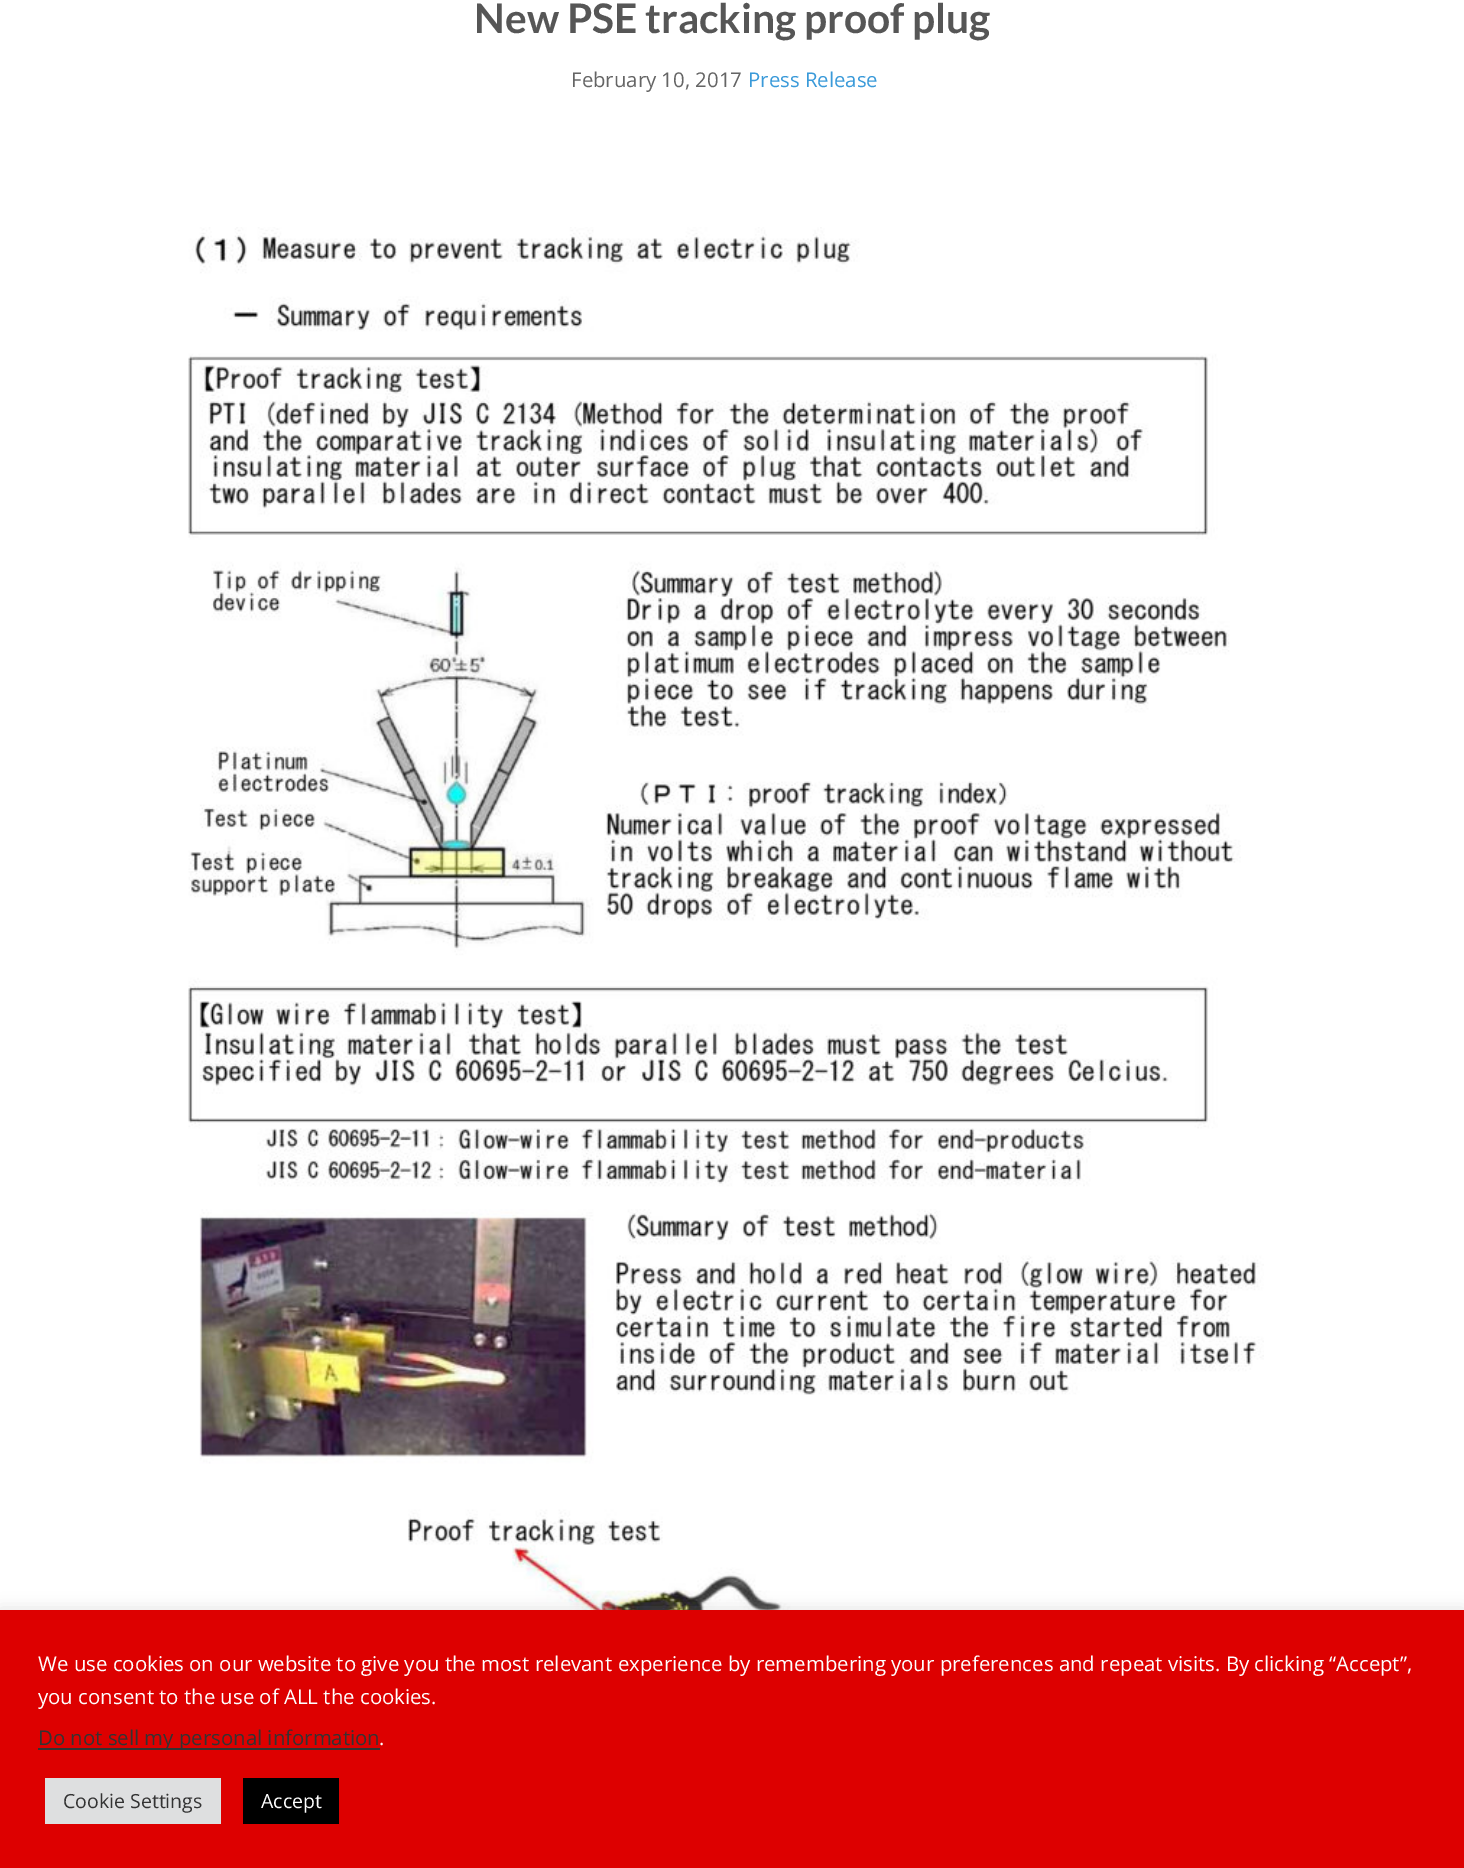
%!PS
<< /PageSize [1464 1868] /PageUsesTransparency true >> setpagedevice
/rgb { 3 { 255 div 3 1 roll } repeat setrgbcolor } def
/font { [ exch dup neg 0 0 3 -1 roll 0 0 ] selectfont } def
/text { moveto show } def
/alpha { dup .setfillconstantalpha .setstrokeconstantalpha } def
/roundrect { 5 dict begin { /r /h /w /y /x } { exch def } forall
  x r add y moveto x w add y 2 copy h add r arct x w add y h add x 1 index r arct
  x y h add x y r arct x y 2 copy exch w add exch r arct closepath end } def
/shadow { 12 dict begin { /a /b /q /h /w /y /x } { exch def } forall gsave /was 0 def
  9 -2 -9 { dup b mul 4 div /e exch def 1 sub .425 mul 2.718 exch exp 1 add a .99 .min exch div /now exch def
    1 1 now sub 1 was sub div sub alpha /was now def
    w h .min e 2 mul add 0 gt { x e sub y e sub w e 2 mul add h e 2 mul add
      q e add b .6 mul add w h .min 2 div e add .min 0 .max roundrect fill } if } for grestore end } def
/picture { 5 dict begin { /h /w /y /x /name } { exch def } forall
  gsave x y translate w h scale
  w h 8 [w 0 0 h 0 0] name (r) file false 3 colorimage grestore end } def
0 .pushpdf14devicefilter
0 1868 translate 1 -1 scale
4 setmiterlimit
255 255 255 rgb
0 0 1464 1868 rectfill
(img_01.rgb) 188 227 1076 1383 picture
172 171 171 rgb
0 1608 1464 260 0 7.5 0.3 shadow
221 0 0 rgb
0 1610 1464 258 rectfill
51 51 51 rgb
38 1748 342 2 rectfill
222 223 224 rgb
45 1778 176 46 rectfill
0 0 0 rgb
243 1778 96 46 rectfill
/Lato-Bold 40.75 font
86 86 86 rgb
(New PSE tracking proof plug) 474 33 text
/OpenSans-Regular 20.4 font
101 101 101 rgb
(February 10, 2017) 571 87 text
58 154 217 rgb
(Press Release) 748 87 text
255 255 255 rgb
(We use cookies on our website to give you the most relevant experience by remembering your preferences and repeat visits. By clicking “Accept”,) 38 1671 text
(you consent to the use of ALL the cookies.) 38 1704 text
51 51 51 rgb
(Do not sell my personal information) 38 1745 text
255 255 255 rgb
(.) 379 1745 text
/OpenSans-Regular 19.5 font
51 51 51 rgb
(Cookie Settings) 63 1808 text
255 255 255 rgb
(Accept) 261 1808 text
.poppdf14devicefilter showpage
